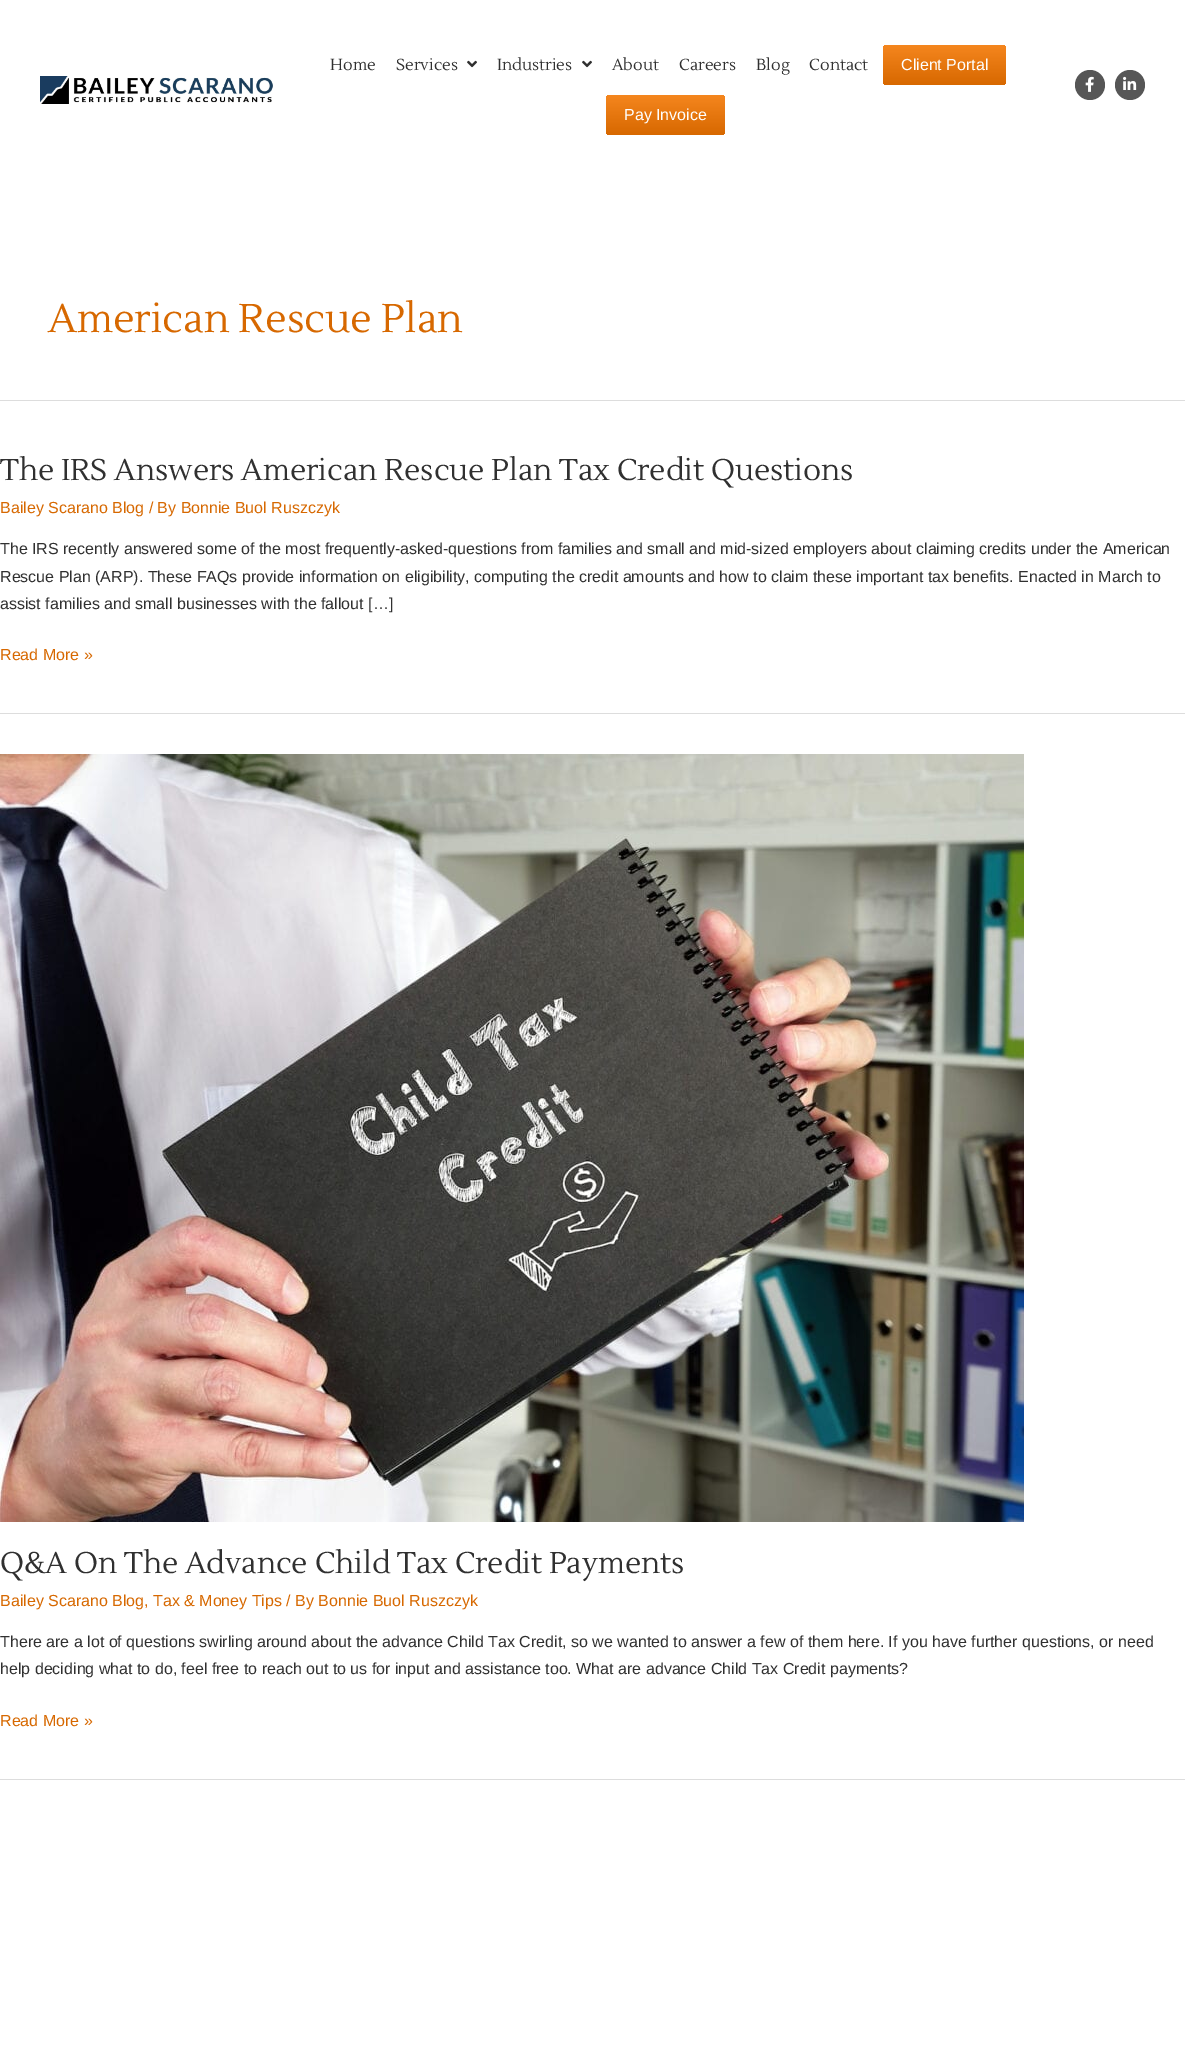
%!PS
<< /PageSize [1185 2072] >> setpagedevice
/rgb { 3 { 255 div 3 1 roll } repeat setrgbcolor } def
/font { [ exch dup neg 0 0 3 -1 roll 0 0 ] selectfont } def
/text { moveto show } def
/circle { newpath 0 360 arc closepath } def
/roundrect { 5 dict begin { /r /h /w /y /x } { exch def } forall
  x r add y moveto x w add y 2 copy h add r arct x w add y h add x 1 index r arct
  x y h add x y r arct x y 2 copy exch w add exch r arct closepath end } def
/picture { 5 dict begin { /h /w /y /x /name } { exch def } forall
  gsave x y translate w h scale
  w h 8 [w 0 0 h 0 0] name (r) file false 3 colorimage grestore end } def
0 2072 translate 1 -1 scale
4 setmiterlimit
255 255 255 rgb
0 0 1185 2072 rectfill
(img_01.rgb) 40 76 233 28 picture
(img_02.rgb) 467 60 10 8 picture
(img_02.rgb) 582 60 10 8 picture
gsave 883 45 123 40 4 roundrect clip newpath
<< /ShadingType 2 /ColorSpace /DeviceRGB /Coords [945 45 945 85] /Extend [true true] /Function << /FunctionType 2 /Domain [0 1] /C0 [0.961 0.525 0.118] /C1 [0.843 0.408 0] /N 1 >> >> shfill grestore
gsave 606 95 119 40 4 roundrect clip newpath
<< /ShadingType 2 /ColorSpace /DeviceRGB /Coords [666 95 666 135] /Extend [true true] /Function << /FunctionType 2 /Domain [0 1] /C0 [0.961 0.525 0.118] /C1 [0.843 0.408 0] /N 1 >> >> shfill grestore
86 86 86 rgb
1090 85 15 circle fill
(img_03.rgb) 1085 76 9 16 picture
1130 85 15 circle fill
(img_04.rgb) 1123 76 14 14 picture
221 221 221 rgb
0 400 1185 1 rectfill
0 713 1185 1 rectfill
0 1779 1185 1 rectfill
(img_05.rgb) 0 754 1024 768 picture
/Lustria-Regular 16 font
48 48 48 rgb
(Home) 330 70 text
(Services) 396 70 text
(Industries) 497 70 text
(About) 612 70 text
(Careers) 679 70 text
(Blog) 756 70 text
(Contact) 809 70 text
/LiberationSans-Regular 16 font
255 255 255 rgb
(Client Portal) 901 70 text
(Pay Invoice) 624 120 text
/Lustria-Regular 40 font
215 104 0 rgb
(American Rescue Plan) 48 332 text
/Lustria-Regular 30 font
48 48 48 rgb
(The IRS Answers American Rescue Plan Tax Credit Questions) 0 480 text
/LiberationSans-Regular 16 font
215 104 0 rgb
(Bailey Scarano Blog / By Bonnie Buol Ruszczyk) 0 513 text
48 48 48 rgb
(The IRS recently answered some of the most frequently-asked-questions from families and small and mid-sized employers about claiming credits under the American) 0 554 text
(Rescue Plan \(ARP\). These FAQs provide information on eligibility, computing the credit amounts and how to claim these important tax benefits. Enacted in March to) 0 582 text
(assist families and small businesses with the fallout […]) 0 609 text
215 104 0 rgb
(Read More ») 0 660 text
/Lustria-Regular 30 font
48 48 48 rgb
(Q&A On The Advance Child Tax Credit Payments) 0 1573 text
/LiberationSans-Regular 16 font
215 104 0 rgb
(Bailey Scarano Blog, Tax & Money Tips / By Bonnie Buol Ruszczyk) 0 1606 text
48 48 48 rgb
(There are a lot of questions swirling around about the advance Child Tax Credit, so we wanted to answer a few of them here. If you have further questions, or need) 0 1647 text
(help deciding what to do, feel free to reach out to us for input and assistance too. What are advance Child Tax Credit payments?) 0 1674 text
215 104 0 rgb
(Read More ») 0 1726 text
showpage
